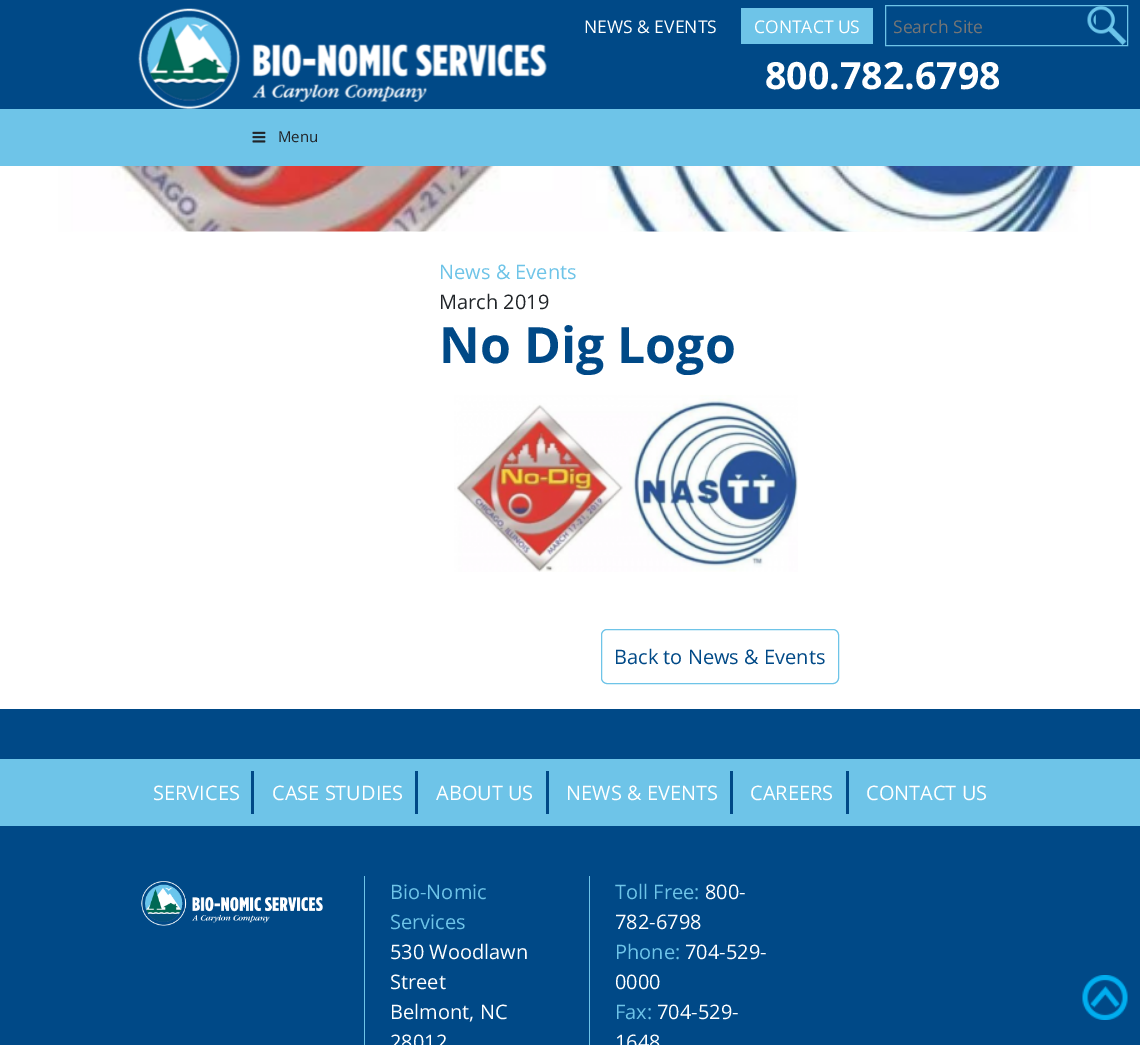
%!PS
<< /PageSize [1140 1045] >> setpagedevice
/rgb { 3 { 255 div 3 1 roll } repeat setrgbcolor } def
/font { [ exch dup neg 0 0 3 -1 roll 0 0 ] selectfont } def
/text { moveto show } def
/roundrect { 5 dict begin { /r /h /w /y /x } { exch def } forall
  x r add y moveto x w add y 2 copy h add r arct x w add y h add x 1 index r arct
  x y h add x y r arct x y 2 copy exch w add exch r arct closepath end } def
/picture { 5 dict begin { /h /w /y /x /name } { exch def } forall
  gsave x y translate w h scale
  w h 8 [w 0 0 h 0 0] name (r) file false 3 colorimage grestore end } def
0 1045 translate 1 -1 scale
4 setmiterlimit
255 255 255 rgb
0 0 1140 1045 rectfill
0 73 135 rgb
0 0 1140 109 rectfill
110 196 232 rgb
741 8 132 36 rectfill
(img_01.rgb) 1087 6 40 39 picture
885.5 5.5 242 40 rectstroke
(img_02.rgb) 138 8 409 101 picture
0 109 1140 57 rectfill
(img_03.rgb) 252 131 14 12 picture
(img_04.rgb) 46 166 1045 66 picture
(img_05.rgb) 454 395 344 177 picture
601.5 629.5 237 54 5.5 roundrect stroke
0 73 135 rgb
0 709 1140 336 rectfill
110 196 232 rgb
0 759 1140 67 rectfill
0 73 135 rgb
251 771 3 43 rectfill
415 771 3 43 rectfill
546 771 3 43 rectfill
730 771 3 43 rectfill
846 771 3 43 rectfill
(img_06.rgb) 141 881 182 45 picture
110 196 232 rgb
364 876 1 169 rectfill
589 876 1 169 rectfill
(img_07.rgb) 1082 975 46 45 picture
/OpenSans-Regular 17.5 font
255 255 255 rgb
(NEWS & EVENTS) 584 33 text
(CONTACT US) 754 33 text
117 117 117 rgb
(Search Site) 893 33 text
/OpenSans-Bold 37.5 font
255 255 255 rgb
(800.782.6798) 765 89 text
/OpenSans-Regular 15 font
33 37 41 rgb
(Menu) 278 142 text
/OpenSans-Regular 20 font
110 196 232 rgb
(News & Events) 439 279 text
33 37 41 rgb
(March 2019) 439 309 text
/OpenSans-Bold 50 font
0 73 135 rgb
(No Dig Logo) 439 363 text
/OpenSans-Regular 20 font
(Back to News & Events) 614 664 text
255 255 255 rgb
(SERVICES) 153 800 text
(CASE STUDIES) 272 800 text
(ABOUT US) 436 800 text
(NEWS & EVENTS) 566 800 text
(CAREERS) 750 800 text
(CONTACT US) 866 800 text
110 196 232 rgb
(Bio-Nomic) 390 899 text
(Services) 390 929 text
255 255 255 rgb
(530 Woodlawn) 390 959 text
(Street) 390 989 text
(Belmont, NC) 390 1019 text
(28012) 390 1049 text
110 196 232 rgb
(Toll Free:) 615 899 text
255 255 255 rgb
(800-) 705 899 text
(782-6798) 615 929 text
110 196 232 rgb
(Phone:) 615 959 text
255 255 255 rgb
(704-529-) 685 959 text
(0000) 615 989 text
110 196 232 rgb
(Fax:) 615 1019 text
255 255 255 rgb
(704-529-) 657 1019 text
(1648) 615 1049 text
showpage
